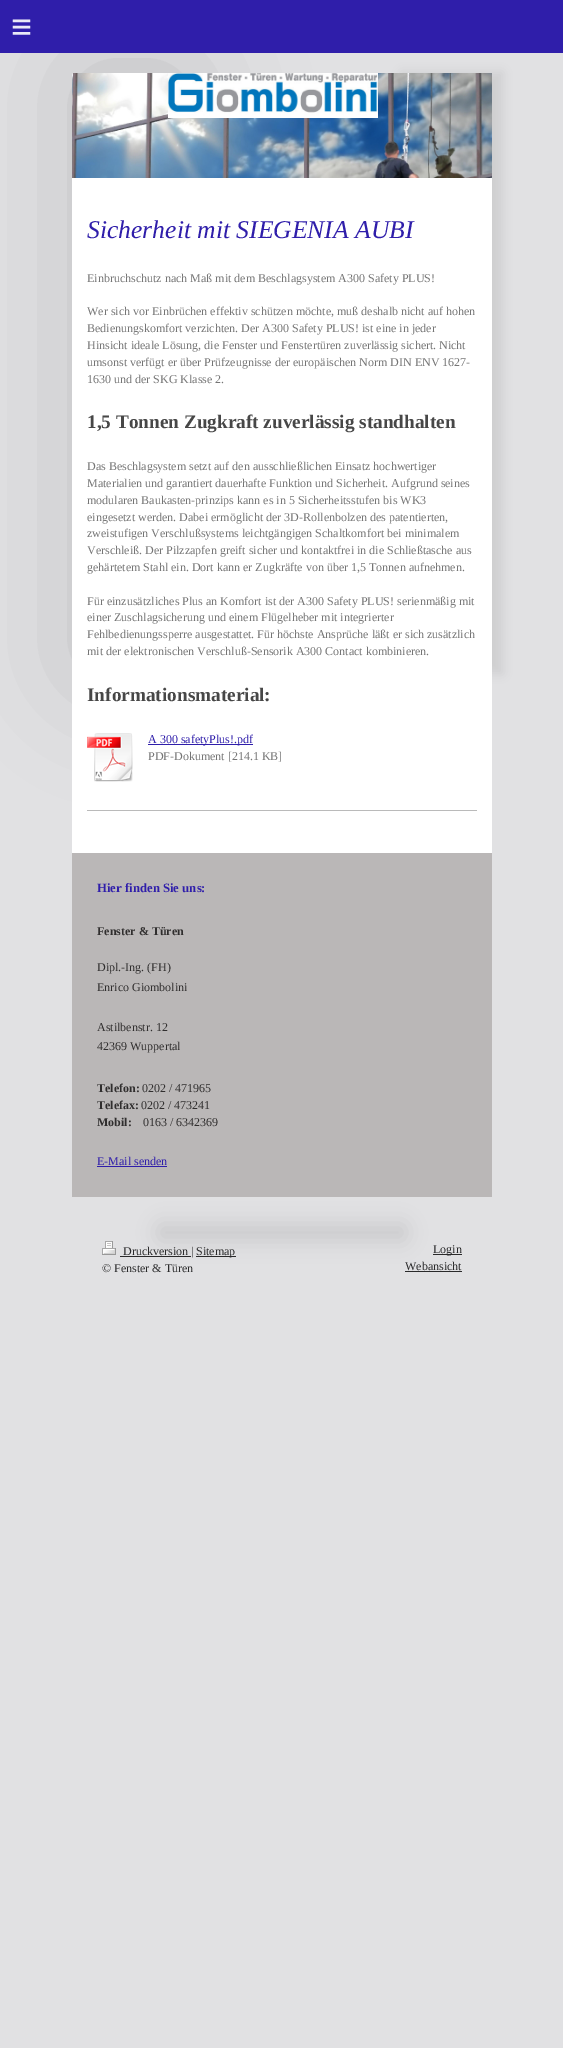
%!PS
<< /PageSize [563 2048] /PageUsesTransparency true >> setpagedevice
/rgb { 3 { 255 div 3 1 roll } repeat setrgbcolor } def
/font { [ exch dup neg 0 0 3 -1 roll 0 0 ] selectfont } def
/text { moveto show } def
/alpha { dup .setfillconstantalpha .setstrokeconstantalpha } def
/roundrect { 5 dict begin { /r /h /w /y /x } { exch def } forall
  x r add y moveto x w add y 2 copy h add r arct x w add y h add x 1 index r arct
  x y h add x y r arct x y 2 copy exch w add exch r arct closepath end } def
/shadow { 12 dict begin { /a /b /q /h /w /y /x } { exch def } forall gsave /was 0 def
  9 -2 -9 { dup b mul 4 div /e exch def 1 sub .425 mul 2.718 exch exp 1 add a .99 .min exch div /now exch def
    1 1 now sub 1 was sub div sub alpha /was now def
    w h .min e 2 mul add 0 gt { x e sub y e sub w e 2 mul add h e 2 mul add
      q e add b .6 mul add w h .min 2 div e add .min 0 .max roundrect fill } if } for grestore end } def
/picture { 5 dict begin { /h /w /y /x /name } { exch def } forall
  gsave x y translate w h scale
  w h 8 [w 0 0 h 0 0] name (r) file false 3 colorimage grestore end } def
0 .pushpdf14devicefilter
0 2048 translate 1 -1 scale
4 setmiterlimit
225 225 227 rgb
0 0 563 2048 rectfill
0 0 0 rgb
82 73 100 600 0 60 0.15 shadow
47 30 170 rgb
0 0 563 53 rectfill
0 0 0 rgb
402 73 100 600 0 5 0.08 shadow
(img_01.rgb) 72 73 420 105 picture
(img_02.rgb) 168 73 210 45 picture
255 255 255 rgb
72 178 420 675 rectfill
(img_03.rgb) 87 733 46 49 picture
47 30 170 rgb
148 744 105 1 rectfill
186 186 186 rgb
87 810 390 1 rectfill
0 0 0 rgb
158 1224 248 17 8.5 10 0.1 shadow
186 183 183 rgb
72 853 420 344 rectfill
47 30 170 rgb
97 1166 70 1 rectfill
(img_04.rgb) 102 1241 14 14 picture
42 42 43 rgb
120 1256 71 1 rectfill
196 1256 40 1 rectfill
433 1254 29 1 rectfill
405 1271 57 1 rectfill
/LiberationSans-Regular 36 font
234 233 247 rgb
11 39 moveto 10 0 (≡) ashow
/LiberationSerif-Italic 25.6 font
47 30 170 rgb
(Sicherheit mit SIEGENIA AUBI) 87 238 text
/LiberationSerif-Regular 12 font
117 117 117 rgb
(Einbruchschutz nach Maß mit dem Beschlagsystem A300 Safety PLUS!) 87 282 text
(Wer sich vor Einbrüchen effektiv schützen möchte, muß deshalb nicht auf hohen) 87 315 text
(Bedienungskomfort verzichten. Der A300 Safety PLUS! ist eine in jeder) 87 332 text
(Hinsicht ideale Lösung, die Fenster und Fenstertüren zuverlässig sichert. Nicht) 87 349 text
(umsonst verfügt er über Prüfzeugnisse der europäischen Norm DIN ENV 1627-) 87 366 text
(1630 und der SKG Klasse 2.) 87 383 text
/LiberationSerif-Bold 19.25 font
71 71 71 rgb
(1,5 Tonnen Zugkraft zuverlässig standhalten) 87 428 text
/LiberationSerif-Regular 12 font
117 117 117 rgb
(Das Beschlagsystem setzt auf den ausschließlichen Einsatz hochwertiger) 87 470 text
(Materialien und garantiert dauerhafte Funktion und Sicherheit. Aufgrund seines) 87 487 text
(modularen Baukasten-prinzips kann es in 5 Sicherheitsstufen bis WK3) 87 504 text
(eingesetzt werden. Dabei ermöglicht der 3D-Rollenbolzen des patentierten,) 87 521 text
(zweistufigen Verschlußsystems leichtgängigen Schaltkomfort bei minimalem) 87 537 text
(Verschleiß. Der Pilzzapfen greift sicher und kontaktfrei in die Schließtasche aus) 87 554 text
(gehärtetem Stahl ein. Dort kann er Zugkräfte von über 1,5 Tonnen aufnehmen.) 87 571 text
(Für einzusätzliches Plus an Komfort ist der A300 Safety PLUS! serienmäßig mit) 87 605 text
(einer Zuschlagsicherung und einem Flügelheber mit integrierter) 87 621 text
(Fehlbedienungssperre ausgestattet. Für höchste Ansprüche läßt er sich zusätzlich) 87 638 text
(mit der elektronischen Verschluß-Sensorik A300 Contact kombinieren.) 87 655 text
/LiberationSerif-Bold 19.25 font
71 71 71 rgb
(Informationsmaterial:) 87 701 text
/LiberationSerif-Regular 12 font
47 30 170 rgb
(A 300 safetyPlus!.pdf) 148 743 text
117 117 117 rgb
(PDF-Dokument [214.1 KB]) 148 760 text
/LiberationSerif-Bold 12.75 font
47 30 170 rgb
(Hier finden Sie uns:) 97 892 text
/LiberationSerif-Bold 12 font
48 46 46 rgb
(Fenster & Türen) 97 935 text
/LiberationSerif-Regular 12 font
(Dipl.-Ing. \(FH\)) 97 971 text
(Enrico Giombolini) 97 991 text
(Astilbenstr. 12) 97 1031 text
(42369 Wuppertal) 97 1050 text
/LiberationSerif-Bold 12 font
(Telefon:) 97 1092 text
/LiberationSerif-Regular 12 font
(0202 / 471965) 142 1092 text
/LiberationSerif-Bold 12 font
(Telefax:) 97 1109 text
/LiberationSerif-Regular 12 font
(0202 / 473241) 141 1109 text
/LiberationSerif-Bold 12 font
(Mobil:) 97 1126 text
/LiberationSerif-Regular 12 font
(0163 / 6342369) 143 1126 text
47 30 170 rgb
(E-Mail senden) 97 1165 text
42 42 43 rgb
(Druckversion |) 123 1255 text
(Sitemap) 196 1255 text
(© Fenster & Türen) 102 1272 text
(Login) 433 1253 text
(Webansicht) 405 1270 text
.poppdf14devicefilter showpage
